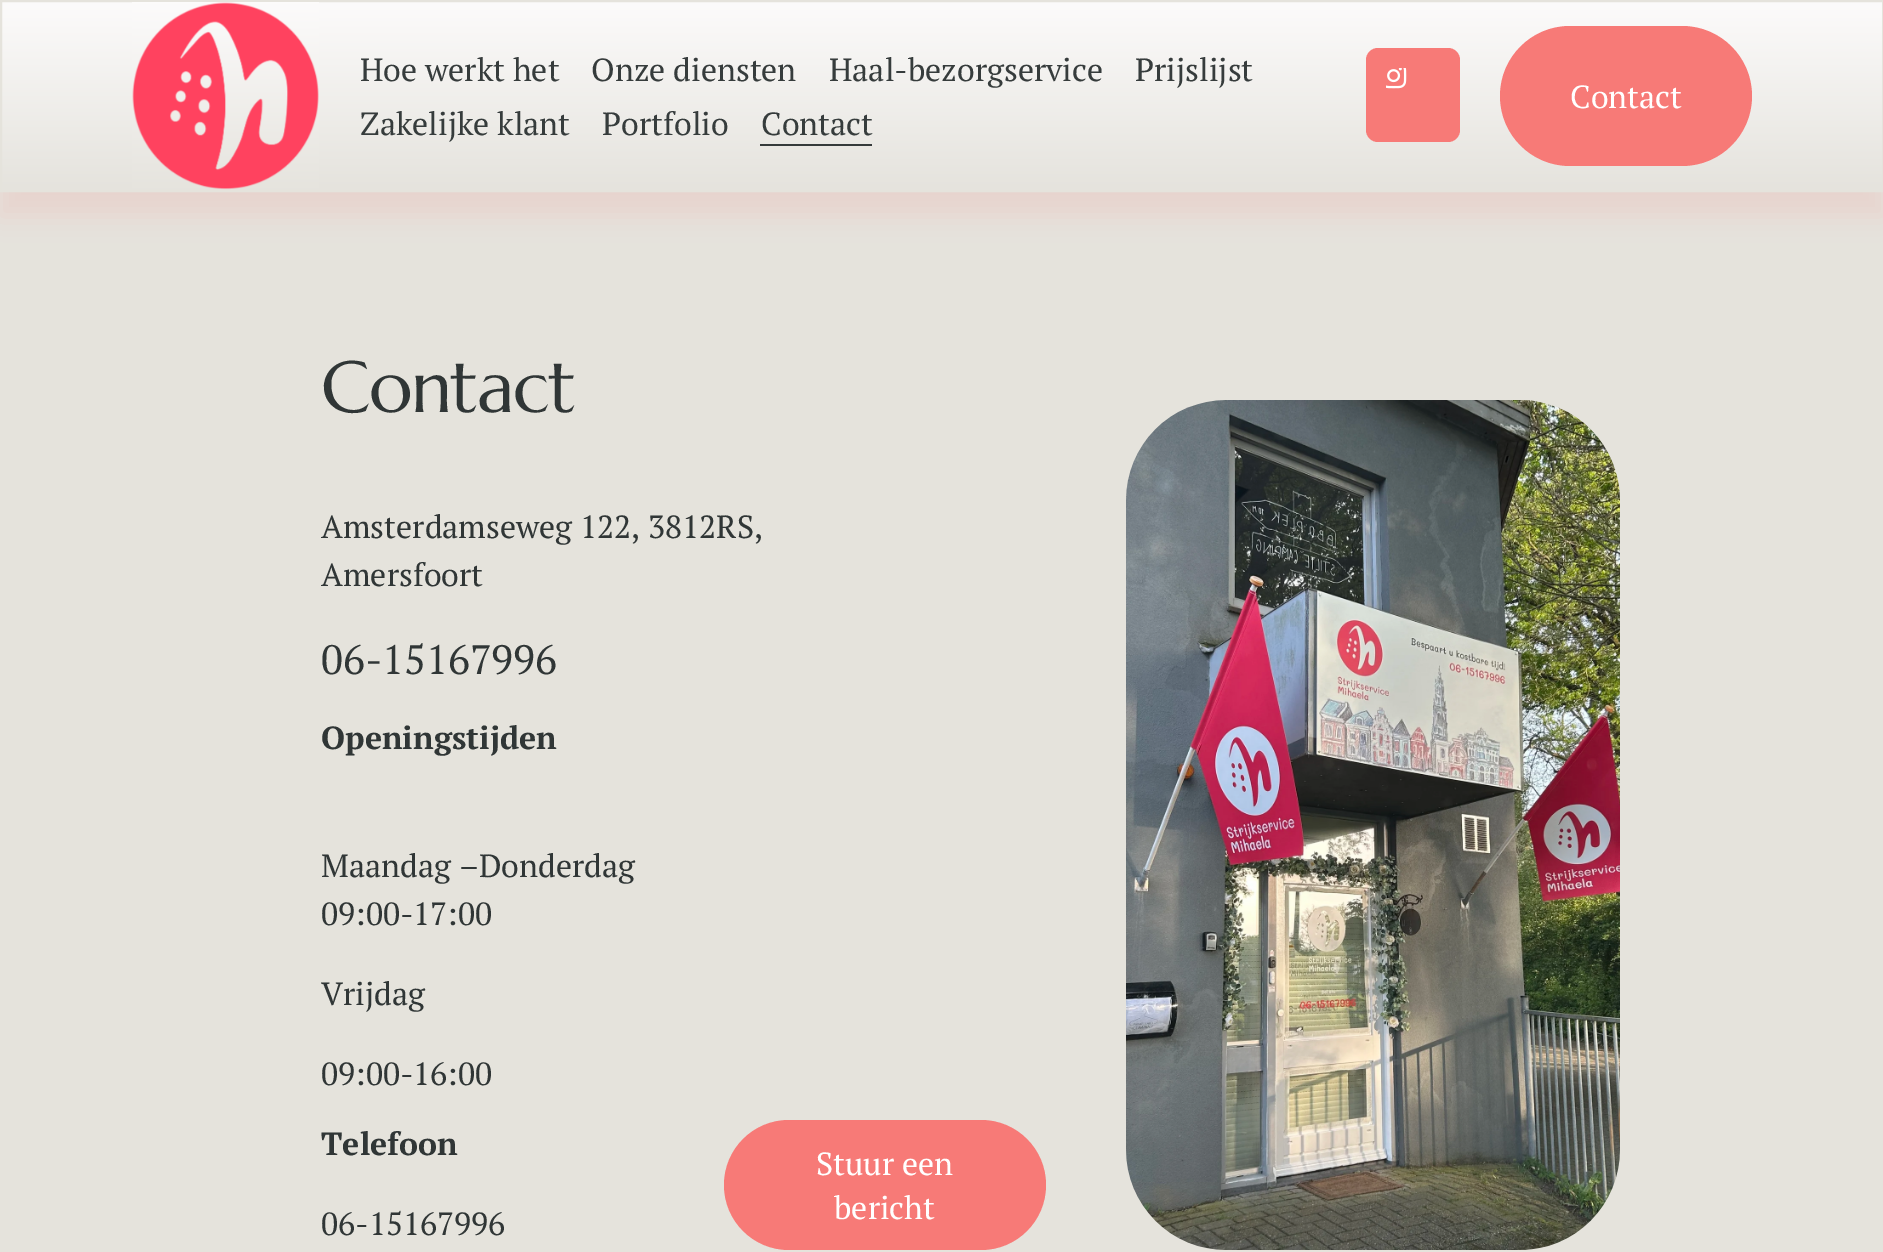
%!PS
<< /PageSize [1883 1252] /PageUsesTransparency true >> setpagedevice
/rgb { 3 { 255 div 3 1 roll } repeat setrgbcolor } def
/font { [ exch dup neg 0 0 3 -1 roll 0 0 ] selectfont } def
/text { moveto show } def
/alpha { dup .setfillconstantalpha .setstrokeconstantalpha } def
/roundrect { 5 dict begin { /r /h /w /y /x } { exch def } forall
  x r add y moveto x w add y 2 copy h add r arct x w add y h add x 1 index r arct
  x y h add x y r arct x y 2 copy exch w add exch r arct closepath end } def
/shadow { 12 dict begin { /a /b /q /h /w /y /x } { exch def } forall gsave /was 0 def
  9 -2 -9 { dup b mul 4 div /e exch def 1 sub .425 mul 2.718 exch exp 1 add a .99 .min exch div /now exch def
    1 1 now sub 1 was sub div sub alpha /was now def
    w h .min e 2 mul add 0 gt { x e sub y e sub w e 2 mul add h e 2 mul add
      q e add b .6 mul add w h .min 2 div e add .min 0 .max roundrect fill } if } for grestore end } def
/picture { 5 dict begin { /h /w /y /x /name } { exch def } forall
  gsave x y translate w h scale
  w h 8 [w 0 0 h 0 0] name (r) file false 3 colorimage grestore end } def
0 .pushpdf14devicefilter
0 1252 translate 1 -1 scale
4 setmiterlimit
229 227 220 rgb
0 0 1883 1252 rectfill
232 211 205 rgb
0 24 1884 192 0 12 1 shadow
gsave 2 2 moveto 1880 0 rlineto 0 188 rlineto -1880 0 rlineto closepath clip newpath
<< /ShadingType 2 /ColorSpace /DeviceRGB /Coords [942 0 942 192] /Extend [true true] /Function << /FunctionType 2 /Domain [0 1] /C0 [0.988 0.984 0.984] /C1 [0.898 0.89 0.867] /N 1 >> >> shfill grestore
229 227 220 rgb
2 setlinewidth
1 1 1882 190 rectstroke
(img_01.rgb) 132 2 187 188 picture
54 59 59 rgb
760 144 112 2 rectfill
247 122 119 rgb
1366 48 94 94 12 roundrect fill
(img_02.rgb) 1386 68 21 21 picture
1500 26 252 140 70 roundrect fill
(img_03.rgb) 1126 400 494 850 picture
724 1120 322 130 65 roundrect fill
/PTSerif-Regular 32 font
54 60 60 rgb
(Hoe werkt het) 360 81 text
(Onze diensten) 591 81 text
(Haal-bezorgservice) 829 81 text
(Prijslijst) 1135 81 text
(Zakelijke klant) 360 135 text
(Portfolio) 602 135 text
(Contact) 761 135 text
255 255 255 rgb
(Contact) 1570 108 text
/Marcellus-Regular 72.5 font
48 54 54 rgb
321 412 moveto -1.5 0 (Contact) ashow
/PTSerif-Regular 32 font
(Amsterdamseweg 122, 3812RS,) 321 538 text
(Amersfoort) 321 586 text
/PTSerif-Regular 41 font
(06-15167996) 321 674 text
/PTSerif-Bold 32 font
(Openingstijden) 321 749 text
/PTSerif-Regular 32 font
(Maandag –Donderdag) 321 877 text
(09:00-17:00) 321 925 text
(Vrijdag) 321 1005 text
(09:00-16:00) 321 1085 text
/PTSerif-Bold 32 font
(Telefoon) 321 1155 text
/PTSerif-Regular 32 font
(06-15167996) 321 1235 text
255 255 255 rgb
(Stuur een) 816 1175 text
(bericht) 834 1219 text
.poppdf14devicefilter showpage
